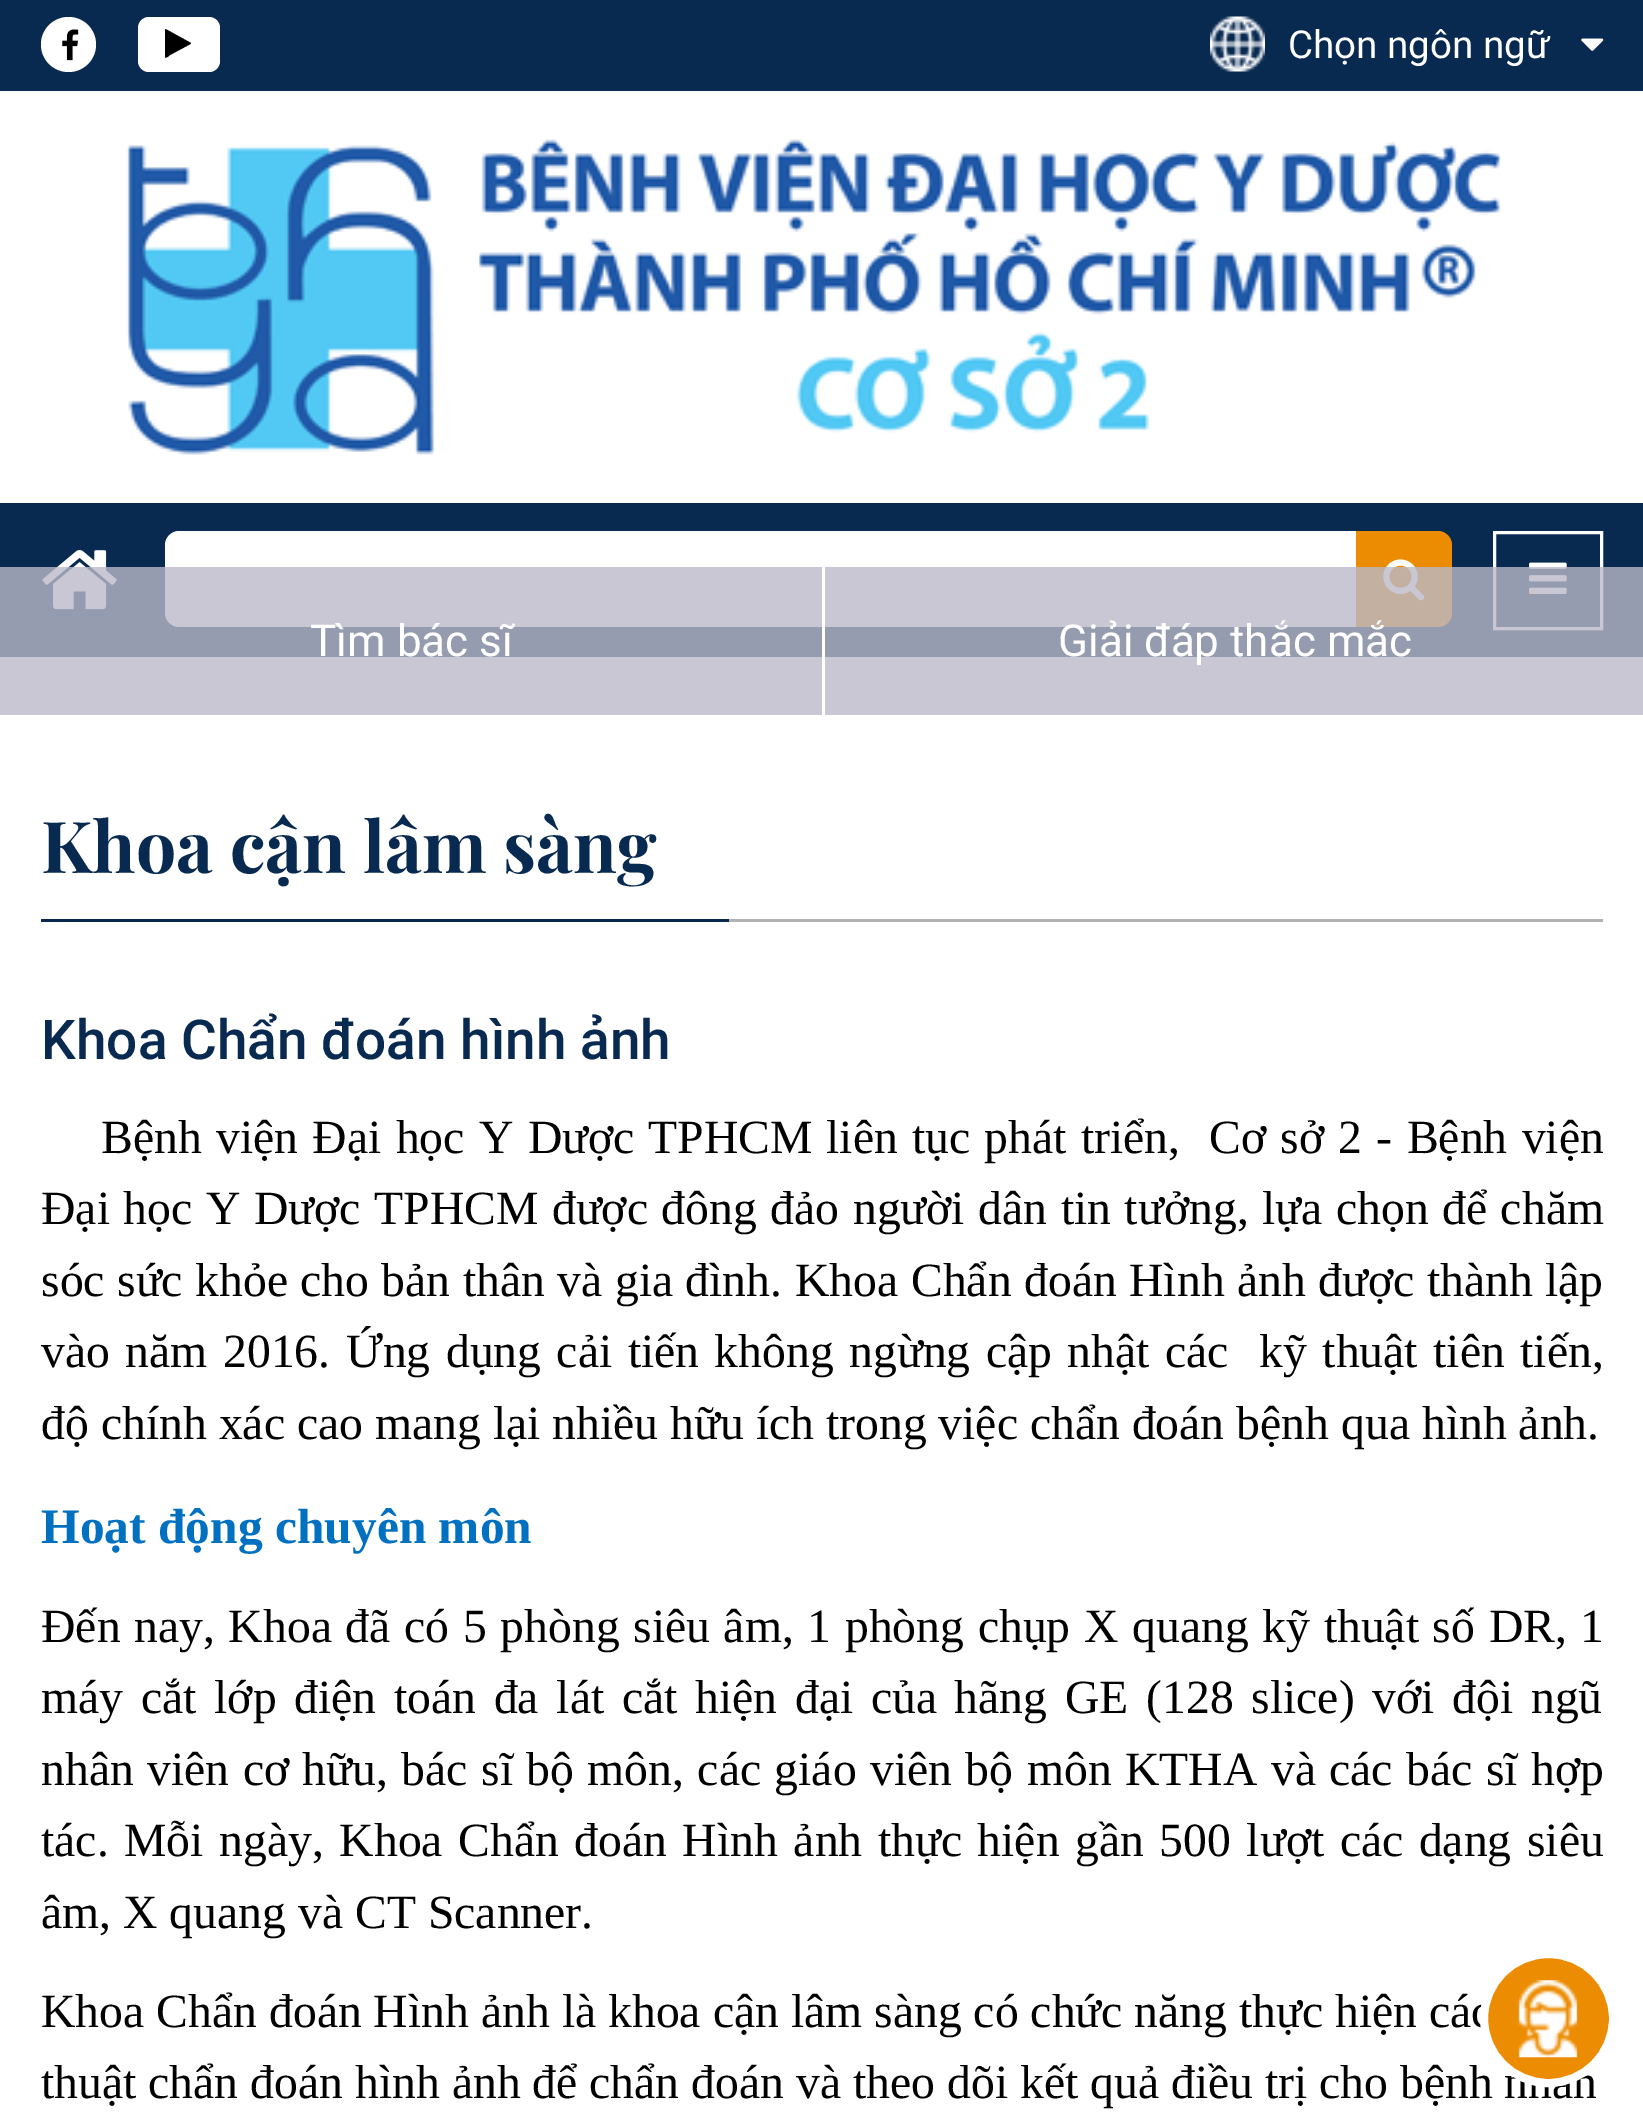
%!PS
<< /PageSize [1643 2113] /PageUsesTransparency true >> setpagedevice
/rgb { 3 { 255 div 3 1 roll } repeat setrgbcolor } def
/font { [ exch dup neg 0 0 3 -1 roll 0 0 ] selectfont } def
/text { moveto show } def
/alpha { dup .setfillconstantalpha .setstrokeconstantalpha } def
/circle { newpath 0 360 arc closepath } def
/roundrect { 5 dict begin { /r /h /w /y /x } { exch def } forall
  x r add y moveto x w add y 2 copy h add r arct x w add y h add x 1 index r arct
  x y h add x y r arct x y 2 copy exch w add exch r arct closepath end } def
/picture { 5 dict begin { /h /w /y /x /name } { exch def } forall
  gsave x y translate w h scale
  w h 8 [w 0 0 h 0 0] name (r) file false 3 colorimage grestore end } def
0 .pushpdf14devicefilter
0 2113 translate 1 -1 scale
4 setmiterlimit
255 255 255 rgb
0 0 1643 2113 rectfill
8 41 80 rgb
0 0 1643 91 rectfill
255 255 255 rgb
68.5 44.5 27.5 circle fill
(img_01.rgb) 62 29 17 32 picture
138 17 82 55 11 roundrect fill
0 0 0 rgb
190.5 44 moveto -20.5 11 rlineto -0.5 0.5 -4 3.5 -5 2.5 rcurveto 0 -28 rlineto 0.5 -0.5 rlineto 21 11.5 rlineto 4.5 2.5 rlineto closepath fill
(img_02.rgb) 1210 16 55 56 picture
(img_03.rgb) 1581 38 23 13 picture
(img_04.rgb) 126 139 1376 316 picture
8 41 80 rgb
0 503 1643 154 rectfill
(img_05.rgb) 42 550 75 60 picture
255 255 255 rgb
179 531 moveto 1177 0 rlineto 0 96 rlineto -1177 0 rlineto -7.5 0 -14 -6.5 -14 -14 rcurveto 0 -68 rlineto 0 -7.5 6.5 -14 14 -14 rcurveto closepath fill
236 140 2 rgb
1356 531 moveto 82 0 rlineto 7.5 0 14 6.5 14 14 rcurveto 0 68 rlineto 0 7.5 -6.5 14 -14 14 rcurveto -82 0 rlineto closepath fill
(img_06.rgb) 1383 559 42 42 picture
255 255 255 rgb
3 setlinewidth
1494.5 532.5 107 96 rectstroke
(img_07.rgb) 1529 562 38 32 picture
0.8 alpha
186 185 200 rgb
0 567 1643 148 rectfill
1 alpha
255 255 255 rgb
822 567 3 148 rectfill
178 178 178 rgb
729 919 874 3 rectfill
8 41 80 rgb
41 919 688 3 rectfill
/Roboto-Regular 38.5 font
255 255 255 rgb
(Chọn ngôn ngữ) 1288 58 text
/Roboto-Regular 44 font
(Tìm bác sĩ) 310 656 text
(Giải đáp thắc mắc) 1058 656 text
/PlayfairDisplay-Bold 71.5 font
8 41 80 rgb
(Khoa cận lâm sàng) 41 873 text
/Roboto-Medium 55 font
(Khoa Chẩn đoán hình ảnh) 41 1059 text
/LiberationSerif-Regular 47.7 font
0 0 0 rgb
101 1153 moveto 2.4 0 32 (Bệnh viện Đại học Y Dược) widthshow
(TPHCM) 648 1153 text
826 1153 moveto 2.4 0 32 (liên tục phát triển,  Cơ sở 2 - Bệnh viện) widthshow
41 1224 moveto 1.6 0 32 (Đại học Y Dược TPHCM được đông đảo người dân tin tưởng, lựa chọn để chăm) widthshow
41 1296 moveto 0.5 0 32 (sóc sức khỏe cho bản thân và gia đình.) widthshow
795 1296 moveto 0.5 0 32 (Khoa Chẩn đoán Hình ảnh được thành lập) widthshow
41 1367 moveto 3.5 0 32 (vào năm 2016. Ứng dụng cải tiến không ngừng cập nhật các  kỹ thuật tiên tiến,) widthshow
(độ chính xác cao mang lại nhiều hữu ích trong việc chẩn đoán bệnh qua hình ảnh.) 41 1439 text
/LiberationSerif-Bold 49.5 font
0 112 192 rgb
(Hoạt động chuyên môn) 41 1543 text
/LiberationSerif-Regular 47.7 font
0 0 0 rgb
41 1642 moveto 1.7 0 32 (Đến nay, Khoa đã có 5 phòng siêu âm, 1 phòng chụp X quang kỹ thuật số DR, 1) widthshow
41 1713 moveto 5.75 0 32 (máy cắt lớp điện toán đa lát cắt hiện đại của hãng GE \(128 slice\) với đội ngũ) widthshow
41 1785 moveto 1.5 0 32 (nhân viên cơ hữu, bác sĩ bộ môn, các giáo viên bộ môn KTHA và các bác sĩ hợp) widthshow
41 1856 moveto 3.6 0 32 (tác. Mỗi ngày, Khoa Chẩn đoán Hình ảnh thực hiện gần 500 lượt các dạng siêu) widthshow
(âm, X quang và CT Scanner.) 41 1928 text
(Khoa Chẩn đoán Hình ảnh là khoa cận lâm sàng có chức năng thực hiện các) 41 2027 text
(thuật chẩn đoán hình ảnh để chẩn đoán và theo dõi kết quả điều trị cho bệnh nhân) 41 2098 text
236 140 2 rgb
1548.5 2018.5 64.5 circle gsave fill grestore
255 255 255 rgb
8 setlinewidth
stroke
(img_08.rgb) 1518 1980 60 78 picture
.poppdf14devicefilter showpage
